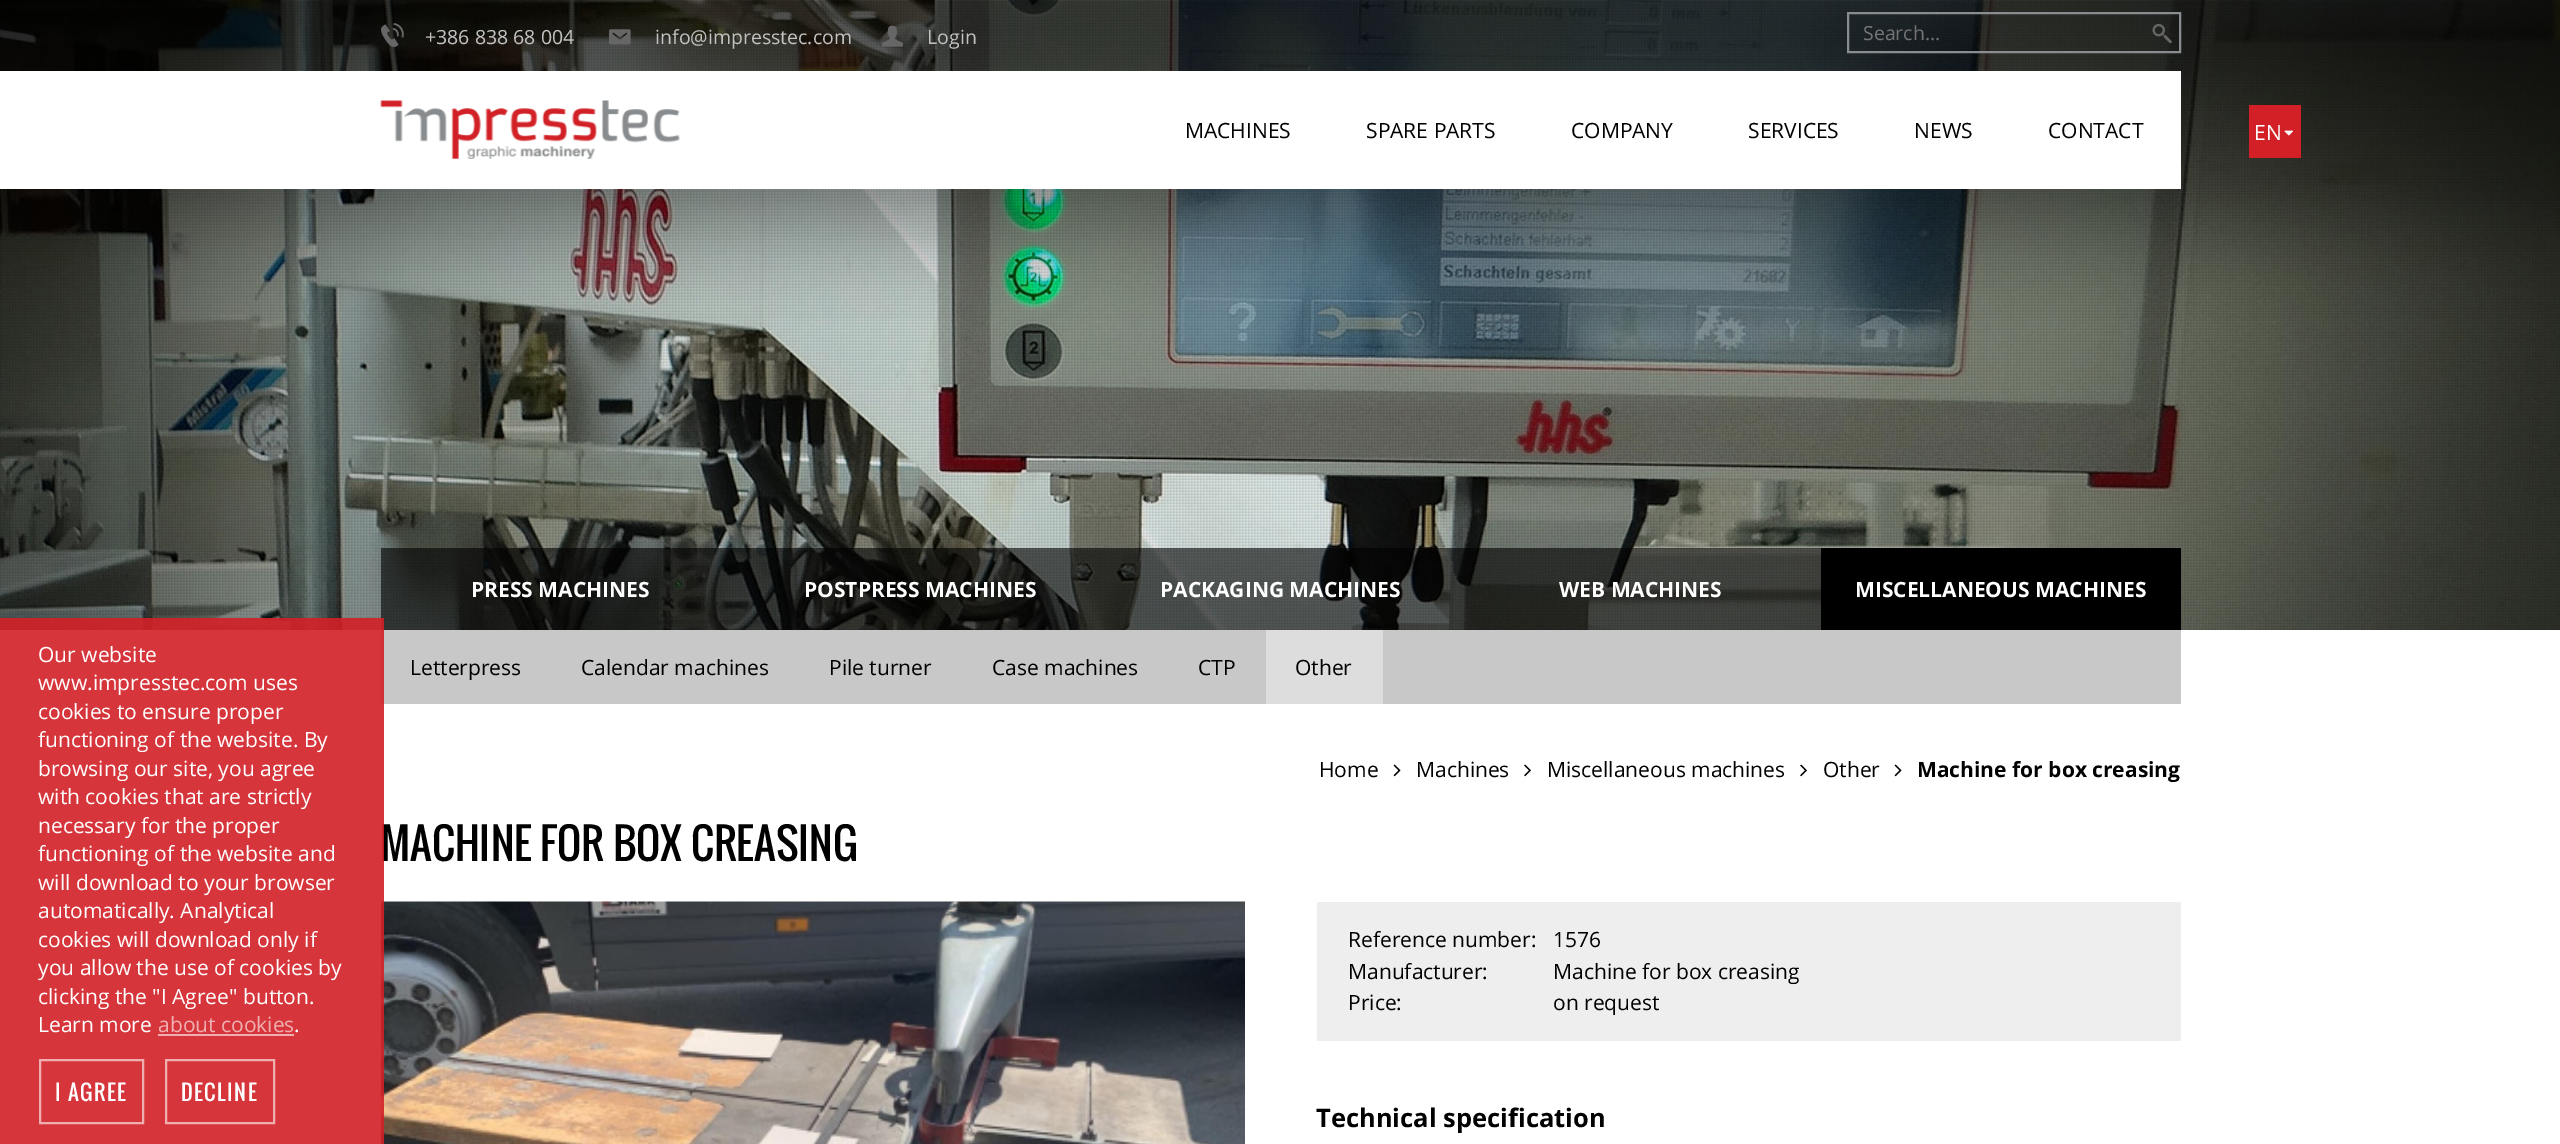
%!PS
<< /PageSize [2560 1144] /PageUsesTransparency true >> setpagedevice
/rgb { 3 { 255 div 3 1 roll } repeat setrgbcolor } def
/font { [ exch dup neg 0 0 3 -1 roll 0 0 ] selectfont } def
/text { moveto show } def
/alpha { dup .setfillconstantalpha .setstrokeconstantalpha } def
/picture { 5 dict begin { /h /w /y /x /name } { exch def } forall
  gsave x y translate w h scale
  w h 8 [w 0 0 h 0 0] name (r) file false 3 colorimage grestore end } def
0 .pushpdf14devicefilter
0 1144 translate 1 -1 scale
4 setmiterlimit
255 255 255 rgb
0 0 2560 1144 rectfill
(img_01.rgb) 0 0 2560 630 picture
(img_02.rgb) 0 0 2560 306 picture
(img_03.rgb) 0 0 2560 630 picture
(img_04.rgb) 381 23 23 24 picture
(img_05.rgb) 609 29 22 16 picture
(img_06.rgb) 882 25 21 22 picture
137 141 144 rgb
2 setlinewidth
1848 13 332 39 rectstroke
(img_07.rgb) 2152 24 20 20 picture
255 255 255 rgb
0 71 2181 118 rectfill
(img_08.rgb) 380 100 300 59 picture
210 32 38 rgb
2249 105 52 53 rectfill
(img_09.rgb) 2284 130 9 6 picture
0.6 alpha
0 0 0 rgb
381 548 1440 82 rectfill
1 alpha
1821 548 360 82 rectfill
200 200 200 rgb
381 630 1800 74 rectfill
221 221 221 rgb
1266 630 117 74 rectfill
(img_10.rgb) 1393 764 8 13 picture
(img_11.rgb) 1524 764 7 13 picture
(img_11.rgb) 1800 764 7 13 picture
(img_10.rgb) 1894 764 8 13 picture
(img_12.rgb) 381 901 864 243 picture
238 238 238 rgb
1317 902 864 139 rectfill
/OpenSans-Regular 19.5 font
194 194 194 rgb
(+386 838 68 004) 425 44 text
(info@impresstec.com) 655 44 text
(Login) 927 44 text
117 117 117 rgb
(Search...) 1863 40 text
/OpenSans-Regular 21 font
0 0 0 rgb
(MACHINES) 1185 138 text
(SPARE PARTS) 1366 138 text
(COMPANY) 1571 138 text
(SERVICES) 1748 138 text
(NEWS) 1914 138 text
(CONTACT) 2048 138 text
255 255 255 rgb
(EN) 2254 140 text
/OpenSans-Bold 21 font
(PRESS MACHINES) 471 597 text
(POSTPRESS MACHINES) 804 597 text
(PACKAGING MACHINES) 1160 597 text
(WEB MACHINES) 1559 597 text
(MISCELLANEOUS MACHINES) 1855 597 text
/OpenSans-Regular 21 font
0 0 0 rgb
(Letterpress) 410 675 text
(Calendar machines) 581 675 text
(Pile turner) 829 675 text
(Case machines) 992 675 text
(CTP) 1198 675 text
(Other) 1295 675 text
(Home) 1319 777 text
(Machines) 1416 777 text
(Miscellaneous machines) 1547 777 text
(Other) 1823 777 text
/OpenSans-Bold 21 font
(Machine for box creasing) 1917 777 text
/Oswald-Regular 42 font
(MACHINE FOR BOX CREASING) 380 861 text
0.9 alpha
210 32 38 rgb
0 618 384 526 rectfill
/OpenSans-Regular 21 font
1 alpha
239 175 177 rgb
(about cookies) 158 1032 text
158 1034 136 2 rectfill
166 1060 108 63 rectstroke
/Oswald-Regular 21 font
255 255 255 rgb
181 1101 moveto 1.5 0 (DECLINE) ashow
239 175 177 rgb
40 1060 103 63 rectstroke
255 255 255 rgb
55 1101 moveto 1.5 0 (I AGREE) ashow
/OpenSans-Regular 21 font
(.) 294 1032 text
(Learn more) 38 1032 text
(clicking the "I Agree" button.) 38 1004 text
(you allow the use of cookies by) 38 975 text
(cookies will download only if) 38 947 text
(automatically. Analytical) 38 918 text
(will download to your browser) 38 890 text
(functioning of the website and) 38 861 text
(necessary for the proper) 38 833 text
(with cookies that are strictly) 38 804 text
(browsing our site, you agree) 38 776 text
(functioning of the website. By) 38 747 text
(cookies to ensure proper) 38 719 text
(www.impresstec.com uses) 38 690 text
(Our website) 38 662 text
0 0 0 rgb
(Reference number:) 1348 947 text
(1576) 1553 947 text
(Manufacturer:) 1348 979 text
(Machine for box creasing) 1553 979 text
(Price:) 1348 1010 text
(on request) 1553 1010 text
/OpenSans-Bold 25.5 font
(Technical specification) 1316 1127 text
.poppdf14devicefilter showpage
